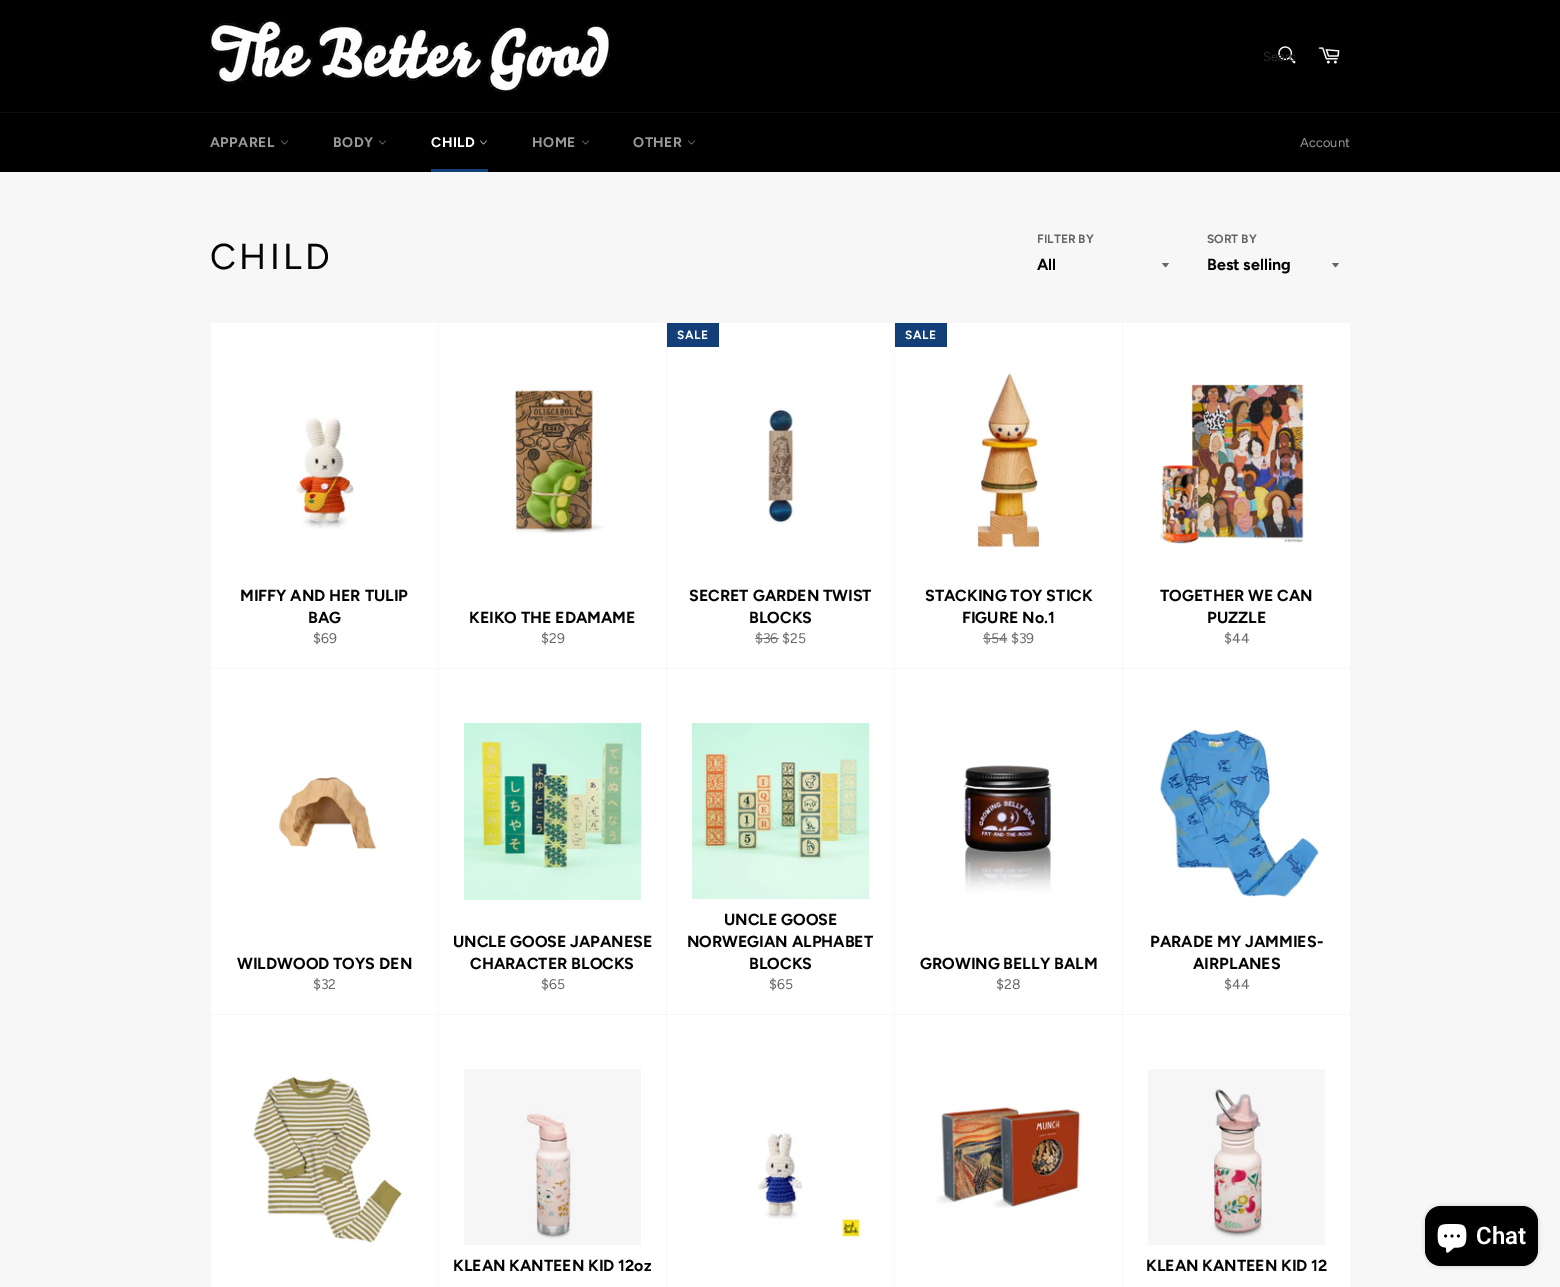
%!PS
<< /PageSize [1560 1287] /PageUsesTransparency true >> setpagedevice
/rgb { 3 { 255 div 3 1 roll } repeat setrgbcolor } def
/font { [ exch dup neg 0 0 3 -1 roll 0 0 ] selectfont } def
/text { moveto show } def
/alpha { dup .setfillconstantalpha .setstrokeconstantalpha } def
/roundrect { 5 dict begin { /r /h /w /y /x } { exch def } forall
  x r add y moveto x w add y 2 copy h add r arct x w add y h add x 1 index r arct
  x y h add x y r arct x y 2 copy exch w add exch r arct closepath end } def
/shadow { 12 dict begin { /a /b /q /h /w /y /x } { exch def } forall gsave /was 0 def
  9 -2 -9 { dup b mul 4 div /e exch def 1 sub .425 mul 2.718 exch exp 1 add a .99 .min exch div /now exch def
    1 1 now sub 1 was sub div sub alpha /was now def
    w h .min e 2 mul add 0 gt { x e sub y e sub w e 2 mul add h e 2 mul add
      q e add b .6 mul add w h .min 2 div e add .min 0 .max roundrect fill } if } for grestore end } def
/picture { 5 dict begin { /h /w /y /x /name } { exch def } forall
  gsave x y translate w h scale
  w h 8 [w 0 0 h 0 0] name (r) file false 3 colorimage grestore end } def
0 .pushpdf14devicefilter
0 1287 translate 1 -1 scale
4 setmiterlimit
247 247 247 rgb
0 0 1560 1287 rectfill
0 0 0 rgb
0 0 1560 112 rectfill
(img_01.rgb) 210 20 400 72 picture
(img_02.rgb) 1278 46 18 18 picture
(img_03.rgb) 1318 47 22 17 picture
0 113 1560 59 rectfill
13 13 13 rgb
0 112 1560 1 rectfill
(img_04.rgb) 281 140 7 5 picture
(img_04.rgb) 379 140 7 5 picture
(img_05.rgb) 480 140 7 5 picture
19 63 121 rgb
431 169 57 3 rectfill
(img_04.rgb) 582 140 7 5 picture
(img_04.rgb) 688 140 7 5 picture
102 102 102 rgb
1162 263 moveto 4.5 5.5 2.5 5.5 7 0 rcurveto closepath fill
1332 263 moveto 4.5 5.5 2.5 5.5 7 0 rcurveto closepath fill
255 255 255 rgb
211 323 227 345 rectfill
(img_06.rgb) 296 417 58 113 picture
439 323 227 345 rectfill
(img_07.rgb) 511 385 93 149 picture
667 323 227 345 rectfill
19 63 121 rgb
667 323 52 24 rectfill
(img_08.rgb) 767 408 28 117 picture
115 115 115 rgb
755 638 24 1 rectfill
255 255 255 rgb
895 323 227 345 rectfill
19 63 121 rgb
895 323 52 24 rectfill
(img_09.rgb) 975 373 67 176 picture
115 115 115 rgb
983 638 24 1 rectfill
255 255 255 rgb
1123 323 227 345 rectfill
(img_10.rgb) 1159 384 145 160 picture
211 669 227 345 rectfill
(img_11.rgb) 278 777 98 72 picture
439 669 227 345 rectfill
(img_12.rgb) 464 723 177 177 picture
667 669 227 345 rectfill
(img_13.rgb) 692 723 177 176 picture
895 669 227 345 rectfill
(img_14.rgb) 961 765 93 127 picture
1123 669 227 345 rectfill
(img_15.rgb) 1159 728 163 169 picture
211 1015 227 272 rectfill
(img_16.rgb) 252 1076 150 167 picture
439 1015 227 272 rectfill
(img_17.rgb) 464 1069 177 176 picture
667 1015 227 272 rectfill
(img_18.rgb) 757 1132 108 108 picture
895 1015 227 272 rectfill
(img_19.rgb) 935 1106 150 102 picture
1123 1015 227 272 rectfill
(img_20.rgb) 1148 1069 177 176 picture
0 0 0 rgb
1425 1206 113 60 16 2.5 0.15 shadow
1425 1206 113 60 16 roundrect fill
(img_21.rgb) 1437 1224 30 29 picture
gsave
1263 49 32 15 rectclip
/Figtree-Regular 13 font
41 41 41 rgb
(Searc) 1263 61 text
grestore
/Figtree-Bold 14 font
153 153 153 rgb
210 147 moveto 0.5 0 (APPAREL) ashow
333 147 moveto 0.5 0 (BODY) ashow
255 255 255 rgb
431 147 moveto 0.5 0 (CHILD) ashow
153 153 153 rgb
532 147 moveto 0.5 0 (HOME) ashow
633 147 moveto 0.5 0 (OTHER) ashow
/Figtree-Regular 13 font
(Account) 1300 147 text
/Figtree-Regular 36 font
3 3 3 rgb
210 269 moveto 3.5 0 (CHILD) ashow
/Figtree-Bold 12 font
102 102 102 rgb
(FILTER BY) 1037 243 text
/Figtree-Bold 16 font
3 3 3 rgb
(All) 1037 270 text
/Figtree-Bold 12 font
102 102 102 rgb
(SORT BY) 1207 243 text
/Figtree-Bold 16 font
3 3 3 rgb
(Best selling) 1207 270 text
(MIFFY AND HER TULIP) 240 601 text
(BAG) 308 623 text
/Figtree-Regular 14 font
102 102 102 rgb
($69) 313 643 text
/Figtree-Bold 16 font
3 3 3 rgb
(KEIKO THE EDAMAME) 469 623 text
/Figtree-Regular 14 font
102 102 102 rgb
($29) 541 643 text
/Figtree-Bold 12 font
255 255 255 rgb
677 339 moveto 0.5 0 (SALE) ashow
/Figtree-Bold 16 font
3 3 3 rgb
(SECRET GARDEN TWIST) 689 601 text
(BLOCKS) 749 623 text
/Figtree-Regular 14 font
115 115 115 rgb
($36) 755 643 text
102 102 102 rgb
($25) 782 643 text
/Figtree-Bold 12 font
255 255 255 rgb
905 339 moveto 0.5 0 (SALE) ashow
/Figtree-Bold 16 font
3 3 3 rgb
(STACKING TOY STICK) 925 601 text
(FIGURE No.1) 962 623 text
/Figtree-Regular 14 font
115 115 115 rgb
($54) 983 643 text
102 102 102 rgb
($39) 1011 643 text
/Figtree-Bold 16 font
3 3 3 rgb
(TOGETHER WE CAN) 1160 601 text
(PUZZLE) 1207 623 text
/Figtree-Regular 14 font
102 102 102 rgb
($44) 1224 643 text
/Figtree-Bold 16 font
3 3 3 rgb
(WILDWOOD TOYS DEN) 237 969 text
/Figtree-Regular 14 font
102 102 102 rgb
($32) 313 989 text
/Figtree-Bold 16 font
3 3 3 rgb
(UNCLE GOOSE JAPANESE) 453 947 text
(CHARACTER BLOCKS) 470 969 text
/Figtree-Regular 14 font
102 102 102 rgb
($65) 541 989 text
/Figtree-Bold 16 font
3 3 3 rgb
(UNCLE GOOSE) 724 925 text
(NORWEGIAN ALPHABET) 687 947 text
(BLOCKS) 749 969 text
/Figtree-Regular 14 font
102 102 102 rgb
($65) 769 989 text
/Figtree-Bold 16 font
3 3 3 rgb
(GROWING BELLY BALM) 920 969 text
/Figtree-Regular 14 font
102 102 102 rgb
($28) 996 989 text
/Figtree-Bold 16 font
3 3 3 rgb
(PARADE MY JAMMIES-) 1150 947 text
(AIRPLANES) 1193 969 text
/Figtree-Regular 14 font
102 102 102 rgb
($44) 1224 989 text
/Figtree-Bold 16 font
3 3 3 rgb
(KLEAN KANTEEN KID 12oz) 453 1271 text
(KLEAN KANTEEN KID 12) 1146 1271 text
/Roboto-SemiBold 24 font
255 255 255 rgb
(Chat) 1476 1244 text
.poppdf14devicefilter showpage
